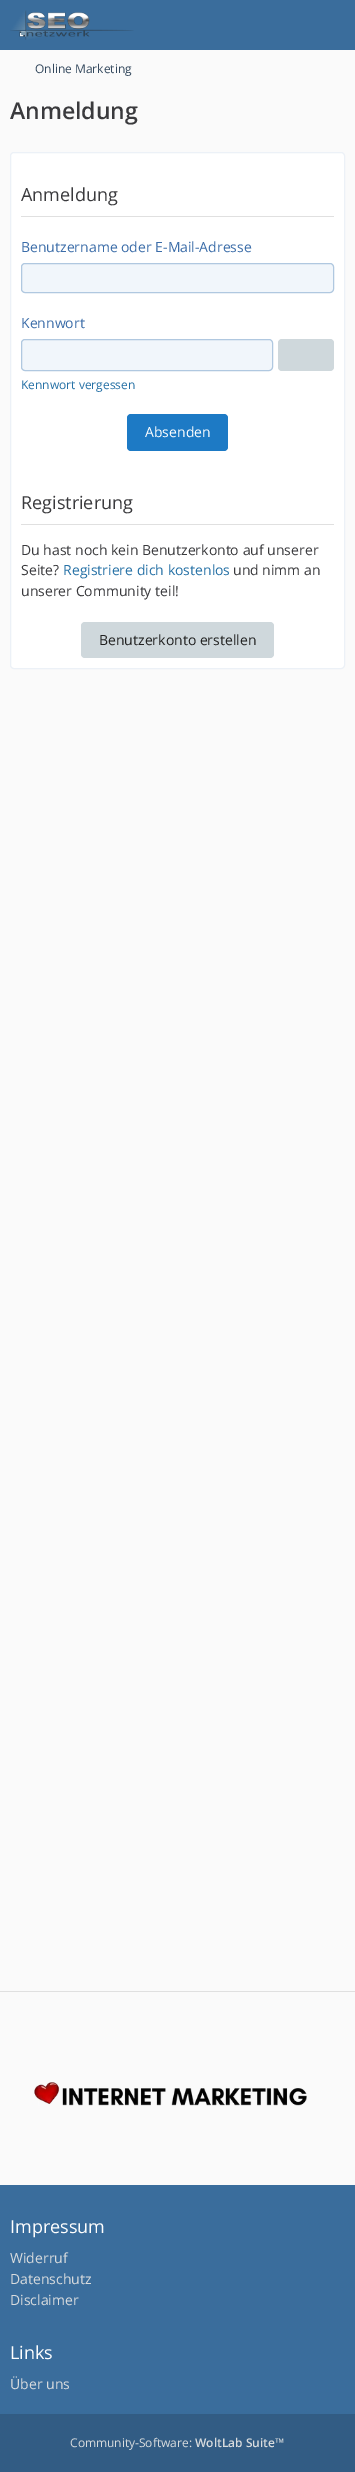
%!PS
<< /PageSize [355 2472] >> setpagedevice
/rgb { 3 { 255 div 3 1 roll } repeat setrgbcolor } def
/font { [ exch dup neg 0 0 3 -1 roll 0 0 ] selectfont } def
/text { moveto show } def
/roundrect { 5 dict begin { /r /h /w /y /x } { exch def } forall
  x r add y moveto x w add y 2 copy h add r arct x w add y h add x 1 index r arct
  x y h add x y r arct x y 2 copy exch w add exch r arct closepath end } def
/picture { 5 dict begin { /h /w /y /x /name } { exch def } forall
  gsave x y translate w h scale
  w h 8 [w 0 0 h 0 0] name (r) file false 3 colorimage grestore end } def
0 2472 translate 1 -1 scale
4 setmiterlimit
250 250 250 rgb
0 0 355 2472 rectfill
58 109 156 rgb
0 0 355 50 rectfill
(img_01.rgb) 10 10 124 30 picture
255 255 255 rgb
10.5 152.5 334 516 3.5 roundrect gsave fill grestore
236 241 247 rgb
stroke
224 224 224 rgb
21 216 313 1 rectfill
241 246 251 rgb
21.5 263.5 312 29 3.5 roundrect gsave fill grestore
176 200 224 rgb
stroke
241 246 251 rgb
21.5 339.5 251 31 3.5 roundrect gsave fill grestore
176 200 224 rgb
stroke
207 216 220 rgb
278 339 56 32 4 roundrect fill
29 122 197 rgb
127 414 101 37 4 roundrect fill
224 224 224 rgb
21 524 313 1 rectfill
207 216 220 rgb
81 622 193 36 4 roundrect fill
224 224 224 rgb
0 1991 355 1 rectfill
(img_02.rgb) 34 2082 273 24 picture
58 109 156 rgb
0 2185 355 229 rectfill
50 92 132 rgb
0 2414 355 58 rectfill
/OpenSans-Regular 12 font
52 73 94 rgb
(Online Marketing) 35 73 text
/OpenSans-SemiBold 23 font
58 58 61 rgb
(Anmeldung) 10 119 text
/OpenSans-Regular 18 font
(Anmeldung) 21 201 text
/OpenSans-Regular 14 font
59 109 169 rgb
(Benutzername oder E-Mail-Adresse) 21 252 text
(Kennwort) 21 328 text
/OpenSans-Regular 12 font
38 113 166 rgb
(Kennwort vergessen) 21 389 text
/OpenSans-Regular 14 font
255 255 255 rgb
(Absenden) 145 437 text
/OpenSans-Regular 18 font
58 58 61 rgb
(Registrierung) 21 509 text
/OpenSans-Regular 14 font
(Du hast noch kein Benutzerkonto auf unserer) 21 555 text
(Seite?) 21 575 text
38 113 166 rgb
(Registriere dich kostenlos) 63 575 text
58 58 61 rgb
(und nimm an) 233 575 text
(unserer Community teil!) 21 596 text
33 33 33 rgb
(Benutzerkonto erstellen) 99 645 text
/OpenSans-Regular 18 font
255 255 255 rgb
(Impressum) 10 2233 text
/OpenSans-Regular 14 font
217 220 222 rgb
(Widerruf) 10 2263 text
(Datenschutz) 10 2284 text
(Disclaimer) 10 2305 text
/OpenSans-Regular 18 font
255 255 255 rgb
(Links) 10 2359 text
/OpenSans-Regular 14 font
217 220 222 rgb
(Über uns) 10 2389 text
/OpenSans-Regular 12 font
(Community-Software:) 70 2447 text
/OpenSans-SemiBold 12 font
(WoltLab Suite™) 195 2447 text
showpage
